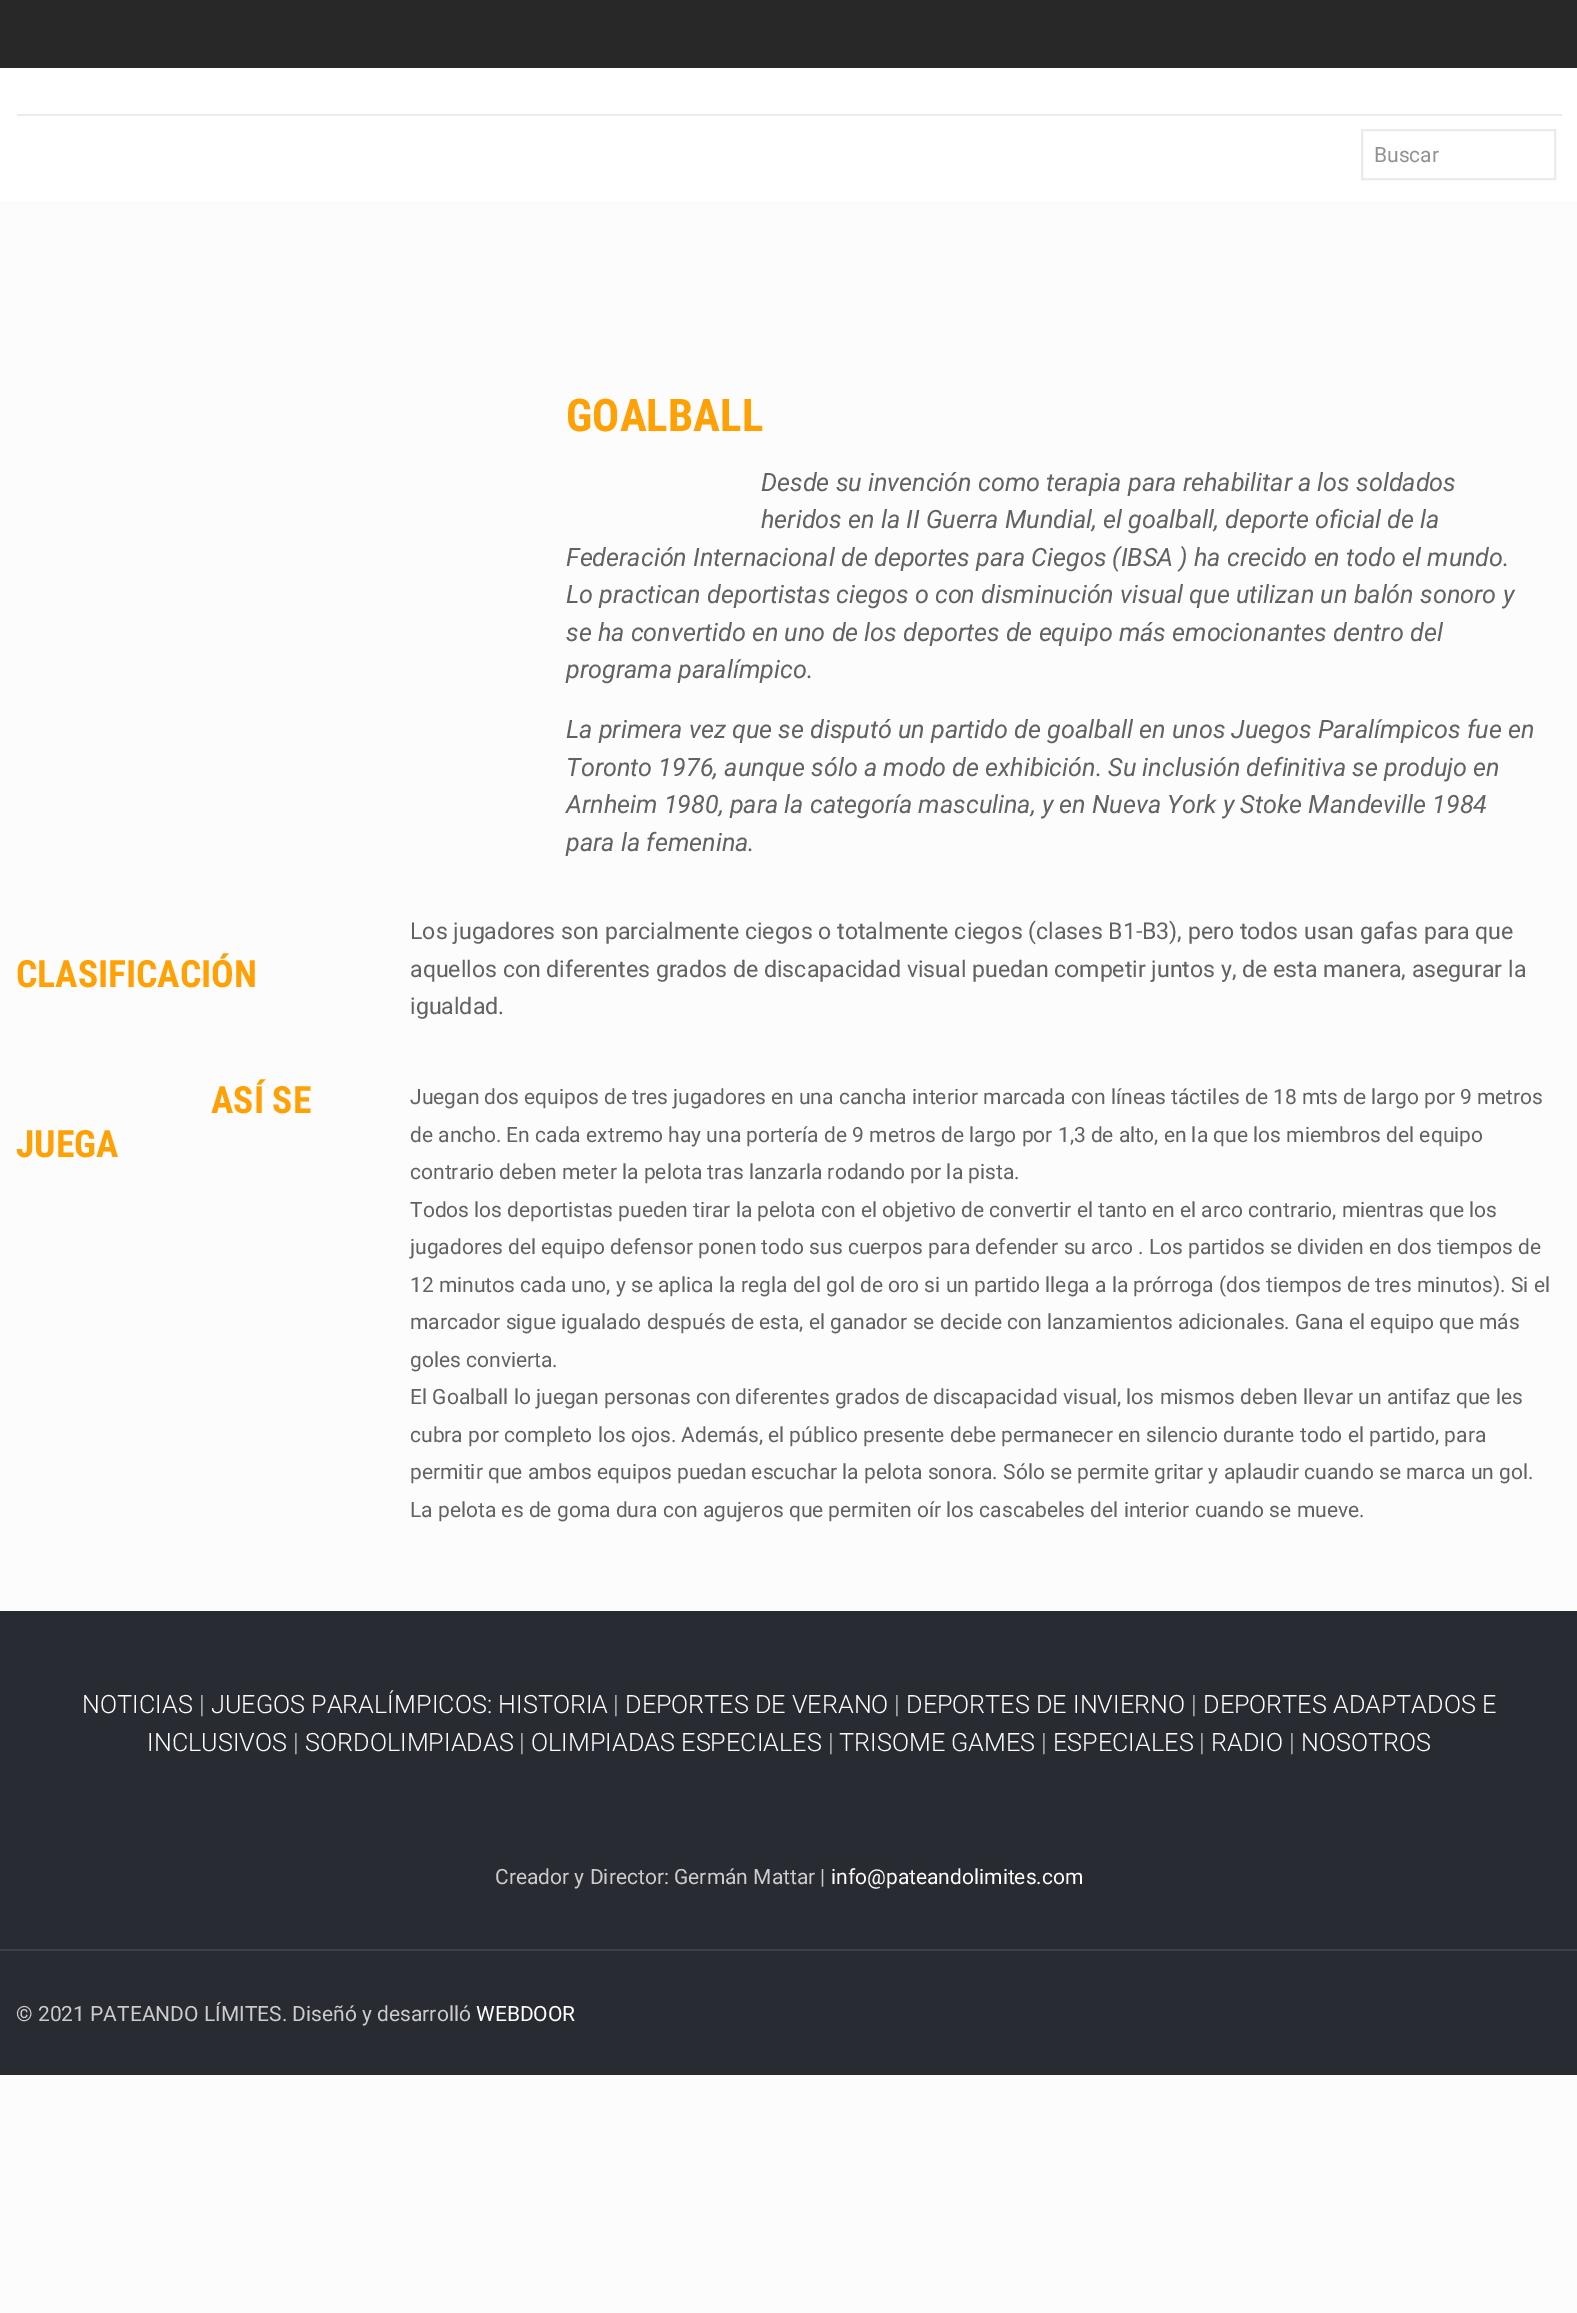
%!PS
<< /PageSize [1577 2313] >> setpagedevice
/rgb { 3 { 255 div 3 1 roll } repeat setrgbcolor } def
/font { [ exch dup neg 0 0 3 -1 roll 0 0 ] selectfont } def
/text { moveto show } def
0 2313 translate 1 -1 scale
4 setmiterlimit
252 252 252 rgb
0 0 1577 2313 rectfill
255 255 255 rgb
0 68 1577 133 rectfill
40 40 40 rgb
0 0 1577 68 rectfill
235 235 235 rgb
17 114 1545 2 rectfill
2 setlinewidth
1362 130 193 49 rectstroke
41 43 51 rgb
0 1611 1577 464 rectfill
62 64 71 rgb
0 1949 1577 2 rectfill
/Roboto-Regular 21 font
146 146 146 rgb
(Buscar) 1374 162 text
/RobotoCondensed-Bold 45 font
255 160 5 rgb
(GOALBALL) 566 431 text
/Roboto-Italic 25.2 font
98 98 98 rgb
(Desde su invención como terapia para rehabilitar a los soldados) 761 491 text
(heridos en la II Guerra Mundial, el goalball, deporte oficial de la) 761 528 text
(Federación Internacional de deportes para Ciegos \(IBSA \) ha crecido en todo el mundo.) 566 566 text
(Lo practican deportistas ciegos o con disminución visual que utilizan un balón sonoro y) 566 603 text
(se ha convertido en uno de los deportes de equipo más emocionantes dentro del) 566 641 text
(programa paralímpico.) 566 678 text
(La primera vez que se disputó un partido de goalball en unos Juegos Paralímpicos fue en) 566 738 text
(Toronto 1976, aunque sólo a modo de exhibición. Su inclusión definitiva se produjo en) 566 776 text
(Arnheim 1980, para la categoría masculina, y en Nueva York y Stoke Mandeville 1984) 566 813 text
(para la femenina.) 566 851 text
/RobotoCondensed-Bold 37.5 font
255 160 5 rgb
(CLASIFICACIÓN) 16 987 text
/Roboto-Regular 23.1 font
98 98 98 rgb
(Los jugadores son parcialmente ciegos o totalmente ciegos \(clases B1-B3\), pero todos usan gafas para que) 410 939 text
(aquellos con diferentes grados de discapacidad visual puedan competir juntos y, de esta manera, asegurar la) 410 977 text
(igualdad.) 410 1014 text
/RobotoCondensed-Bold 37.5 font
255 160 5 rgb
(ASÍ SE) 211 1113 text
(JUEGA) 16 1157 text
/Roboto-Regular 21 font
98 98 98 rgb
(Juegan dos equipos de tres jugadores en una cancha interior marcada con líneas táctiles de 18 mts de largo por 9 metros) 410 1104 text
(de ancho. En cada extremo hay una portería de 9 metros de largo por 1,3 de alto, en la que los miembros del equipo) 410 1142 text
(contrario deben meter la pelota tras lanzarla rodando por la pista.) 410 1179 text
(Todos los deportistas pueden tirar la pelota con el objetivo de convertir el tanto en el arco contrario, mientras que los) 410 1217 text
(jugadores del equipo defensor ponen todo sus cuerpos para defender su arco . Los partidos se dividen en dos tiempos de) 410 1254 text
(12 minutos cada uno, y se aplica la regla del gol de oro si un partido llega a la prórroga \(dos tiempos de tres minutos\). Si el) 410 1292 text
(marcador sigue igualado después de esta, el ganador se decide con lanzamientos adicionales. Gana el equipo que más) 410 1329 text
(goles convierta.) 410 1367 text
(El Goalball lo juegan personas con diferentes grados de discapacidad visual, los mismos deben llevar un antifaz que les) 410 1404 text
(cubra por completo los ojos. Además, el público presente debe permanecer en silencio durante todo el partido, para) 410 1442 text
(permitir que ambos equipos puedan escuchar la pelota sonora. Sólo se permite gritar y aplaudir cuando se marca un gol.) 410 1479 text
(La pelota es de goma dura con agujeros que permiten oír los cascabeles del interior cuando se mueve.) 410 1517 text
/Roboto-Light 25.2 font
255 255 255 rgb
(NOTICIAS) 82 1713 text
204 204 204 rgb
(|) 199 1713 text
255 255 255 rgb
(JUEGOS PARALÍMPICOS: HISTORIA) 211 1713 text
204 204 204 rgb
(|) 613 1713 text
255 255 255 rgb
(DEPORTES DE VERANO) 625 1713 text
204 204 204 rgb
(|) 894 1713 text
255 255 255 rgb
(DEPORTES DE INVIERNO) 906 1713 text
204 204 204 rgb
(|) 1191 1713 text
255 255 255 rgb
(DEPORTES ADAPTADOS E) 1203 1713 text
(INCLUSIVOS) 147 1751 text
204 204 204 rgb
(|) 293 1751 text
255 255 255 rgb
(SORDOLIMPIADAS) 305 1751 text
204 204 204 rgb
(|) 519 1751 text
255 255 255 rgb
(OLIMPIADAS ESPECIALES) 531 1751 text
204 204 204 rgb
(|) 828 1751 text
255 255 255 rgb
(TRISOME GAMES) 839 1751 text
204 204 204 rgb
(|) 1041 1751 text
255 255 255 rgb
(ESPECIALES) 1053 1751 text
204 204 204 rgb
(|) 1199 1751 text
255 255 255 rgb
(RADIO) 1211 1751 text
204 204 204 rgb
(|) 1289 1751 text
255 255 255 rgb
(NOSOTROS) 1301 1751 text
/Roboto-Regular 21 font
204 204 204 rgb
(Creador y Director: Germán Mattar |) 495 1884 text
255 255 255 rgb
(info@pateandolimites.com) 831 1884 text
204 204 204 rgb
(© 2021 PATEANDO LÍMITES. Diseñó y desarrolló) 16 2021 text
255 255 255 rgb
(WEBDOOR) 476 2021 text
showpage
